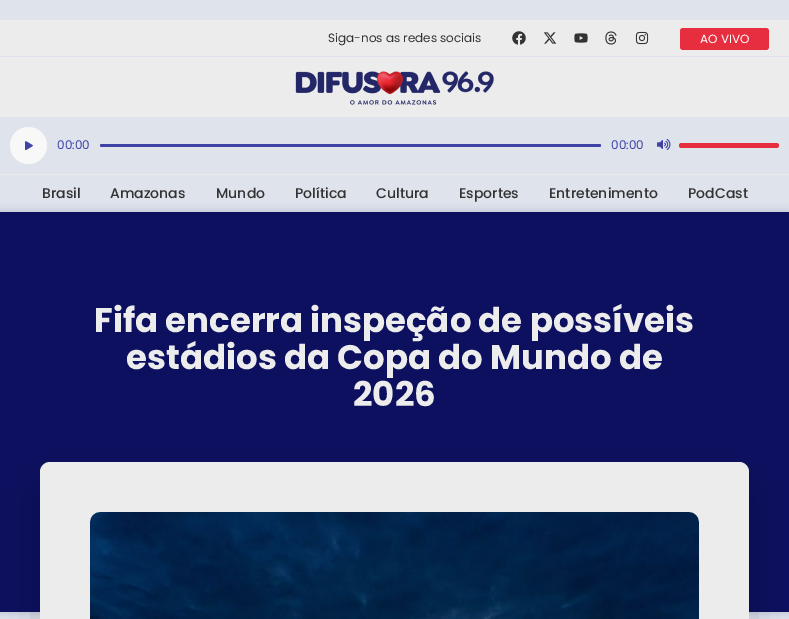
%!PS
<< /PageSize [789 619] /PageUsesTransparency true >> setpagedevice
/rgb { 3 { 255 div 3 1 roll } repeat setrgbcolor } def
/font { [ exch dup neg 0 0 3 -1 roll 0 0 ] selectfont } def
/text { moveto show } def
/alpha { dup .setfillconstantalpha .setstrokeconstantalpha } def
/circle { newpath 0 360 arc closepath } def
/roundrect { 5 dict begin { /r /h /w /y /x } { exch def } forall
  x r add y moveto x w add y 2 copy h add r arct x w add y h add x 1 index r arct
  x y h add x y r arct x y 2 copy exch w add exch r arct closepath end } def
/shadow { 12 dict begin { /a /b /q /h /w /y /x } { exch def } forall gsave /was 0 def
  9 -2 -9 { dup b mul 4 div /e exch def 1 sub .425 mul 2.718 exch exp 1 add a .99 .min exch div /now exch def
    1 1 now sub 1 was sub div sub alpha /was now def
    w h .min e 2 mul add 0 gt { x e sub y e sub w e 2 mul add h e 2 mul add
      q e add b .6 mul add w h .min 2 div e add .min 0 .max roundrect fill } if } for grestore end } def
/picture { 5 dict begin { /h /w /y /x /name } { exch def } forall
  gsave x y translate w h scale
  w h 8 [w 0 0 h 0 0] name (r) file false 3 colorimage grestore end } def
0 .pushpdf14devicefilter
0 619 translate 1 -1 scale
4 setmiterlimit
223 227 236 rgb
0 0 789 619 rectfill
236 236 236 rgb
0 20 789 36 rectfill
(img_01.rgb) 512 31 14 14 picture
(img_02.rgb) 543 32 14 12 picture
(img_03.rgb) 574 33 14 10 picture
(img_04.rgb) 605 31 12 14 picture
(img_05.rgb) 635 31 14 14 picture
231 46 63 rgb
680 28 89 22 3 roundrect fill
236 236 236 rgb
0 57 789 60 rectfill
(img_06.rgb) 295 71 199 34 picture
248 248 248 rgb
28.5 145.5 18.5 circle fill
(img_07.rgb) 25 141 8 10 picture
63 67 165 rgb
100 144 501 3 1.5 roundrect fill
(img_08.rgb) 657 138 14 13 picture
231 46 63 rgb
679 143 100 5 2.5 roundrect fill
236 236 236 rgb
0 174 789 1 rectfill
12 16 94 rgb
0 212 789 400 rectfill
22 25 97 rgb
0 212 789 400 0 4.5 0.2 shadow
0 0 0 rgb
56 501 677 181 0 21 0.5 shadow
236 236 236 rgb
40 462 709 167 10 roundrect fill
(img_09.rgb) 90 512 609 107 picture
/Poppins-Regular 12 font
51 51 51 rgb
(Siga-nos as redes sociais) 328 42 text
255 255 255 rgb
(AO VIVO) 700 43 text
63 67 165 rgb
(00:00) 57 149 text
(00:00) 611 149 text
/Poppins-Medium 14 font
51 51 51 rgb
(Brasil) 42 198 text
(Amazonas) 110 198 text
(Mundo) 216 198 text
(Política) 295 198 text
(Cultura) 376 198 text
(Esportes) 459 198 text
(Entretenimento) 549 198 text
(PodCast) 688 198 text
/Poppins-Bold 34 font
236 236 236 rgb
(Fifa encerra inspeção de possíveis) 94 332 text
(estádios da Copa do Mundo de) 126 369 text
(2026) 353 406 text
.poppdf14devicefilter showpage
